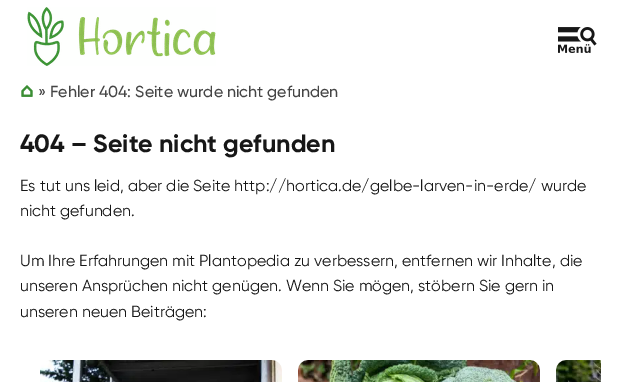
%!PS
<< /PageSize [621 382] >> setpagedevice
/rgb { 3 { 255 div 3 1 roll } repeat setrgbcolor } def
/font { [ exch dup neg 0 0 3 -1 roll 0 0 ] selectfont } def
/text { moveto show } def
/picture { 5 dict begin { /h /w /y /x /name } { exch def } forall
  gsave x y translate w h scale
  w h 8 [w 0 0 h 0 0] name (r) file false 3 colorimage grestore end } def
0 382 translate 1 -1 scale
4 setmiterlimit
255 255 255 rgb
0 0 621 382 rectfill
(img_01.rgb) 27 7 189 59 picture
(img_02.rgb) 558 27 39 26 picture
(img_03.rgb) 21 85 12 12 picture
(img_04.rgb) 40 360 242 22 picture
(img_05.rgb) 298 360 242 22 picture
(img_06.rgb) 556 360 45 22 picture
/Gilroy-Medium 16 font
69 69 69 rgb
(» Fehler 404: Seite wurde nicht gefunden) 38 97 text
/Gilroy-Bold 25 font
23 23 23 rgb
(404 – Seite nicht gefunden) 20 152 text
/Gilroy-Regular 16 font
(Es tut uns leid, aber die Seite http://hortica.de/gelbe-larven-in-erde/ wurde) 20 191 text
(nicht gefunden.) 20 216 text
(Um Ihre Erfahrungen mit Plantopedia zu verbessern, entfernen wir Inhalte, die) 20 266 text
(unseren Ansprüchen nicht genügen. Wenn Sie mögen, stöbern Sie gern in) 20 291 text
(unseren neuen Beiträgen:) 20 317 text
showpage
